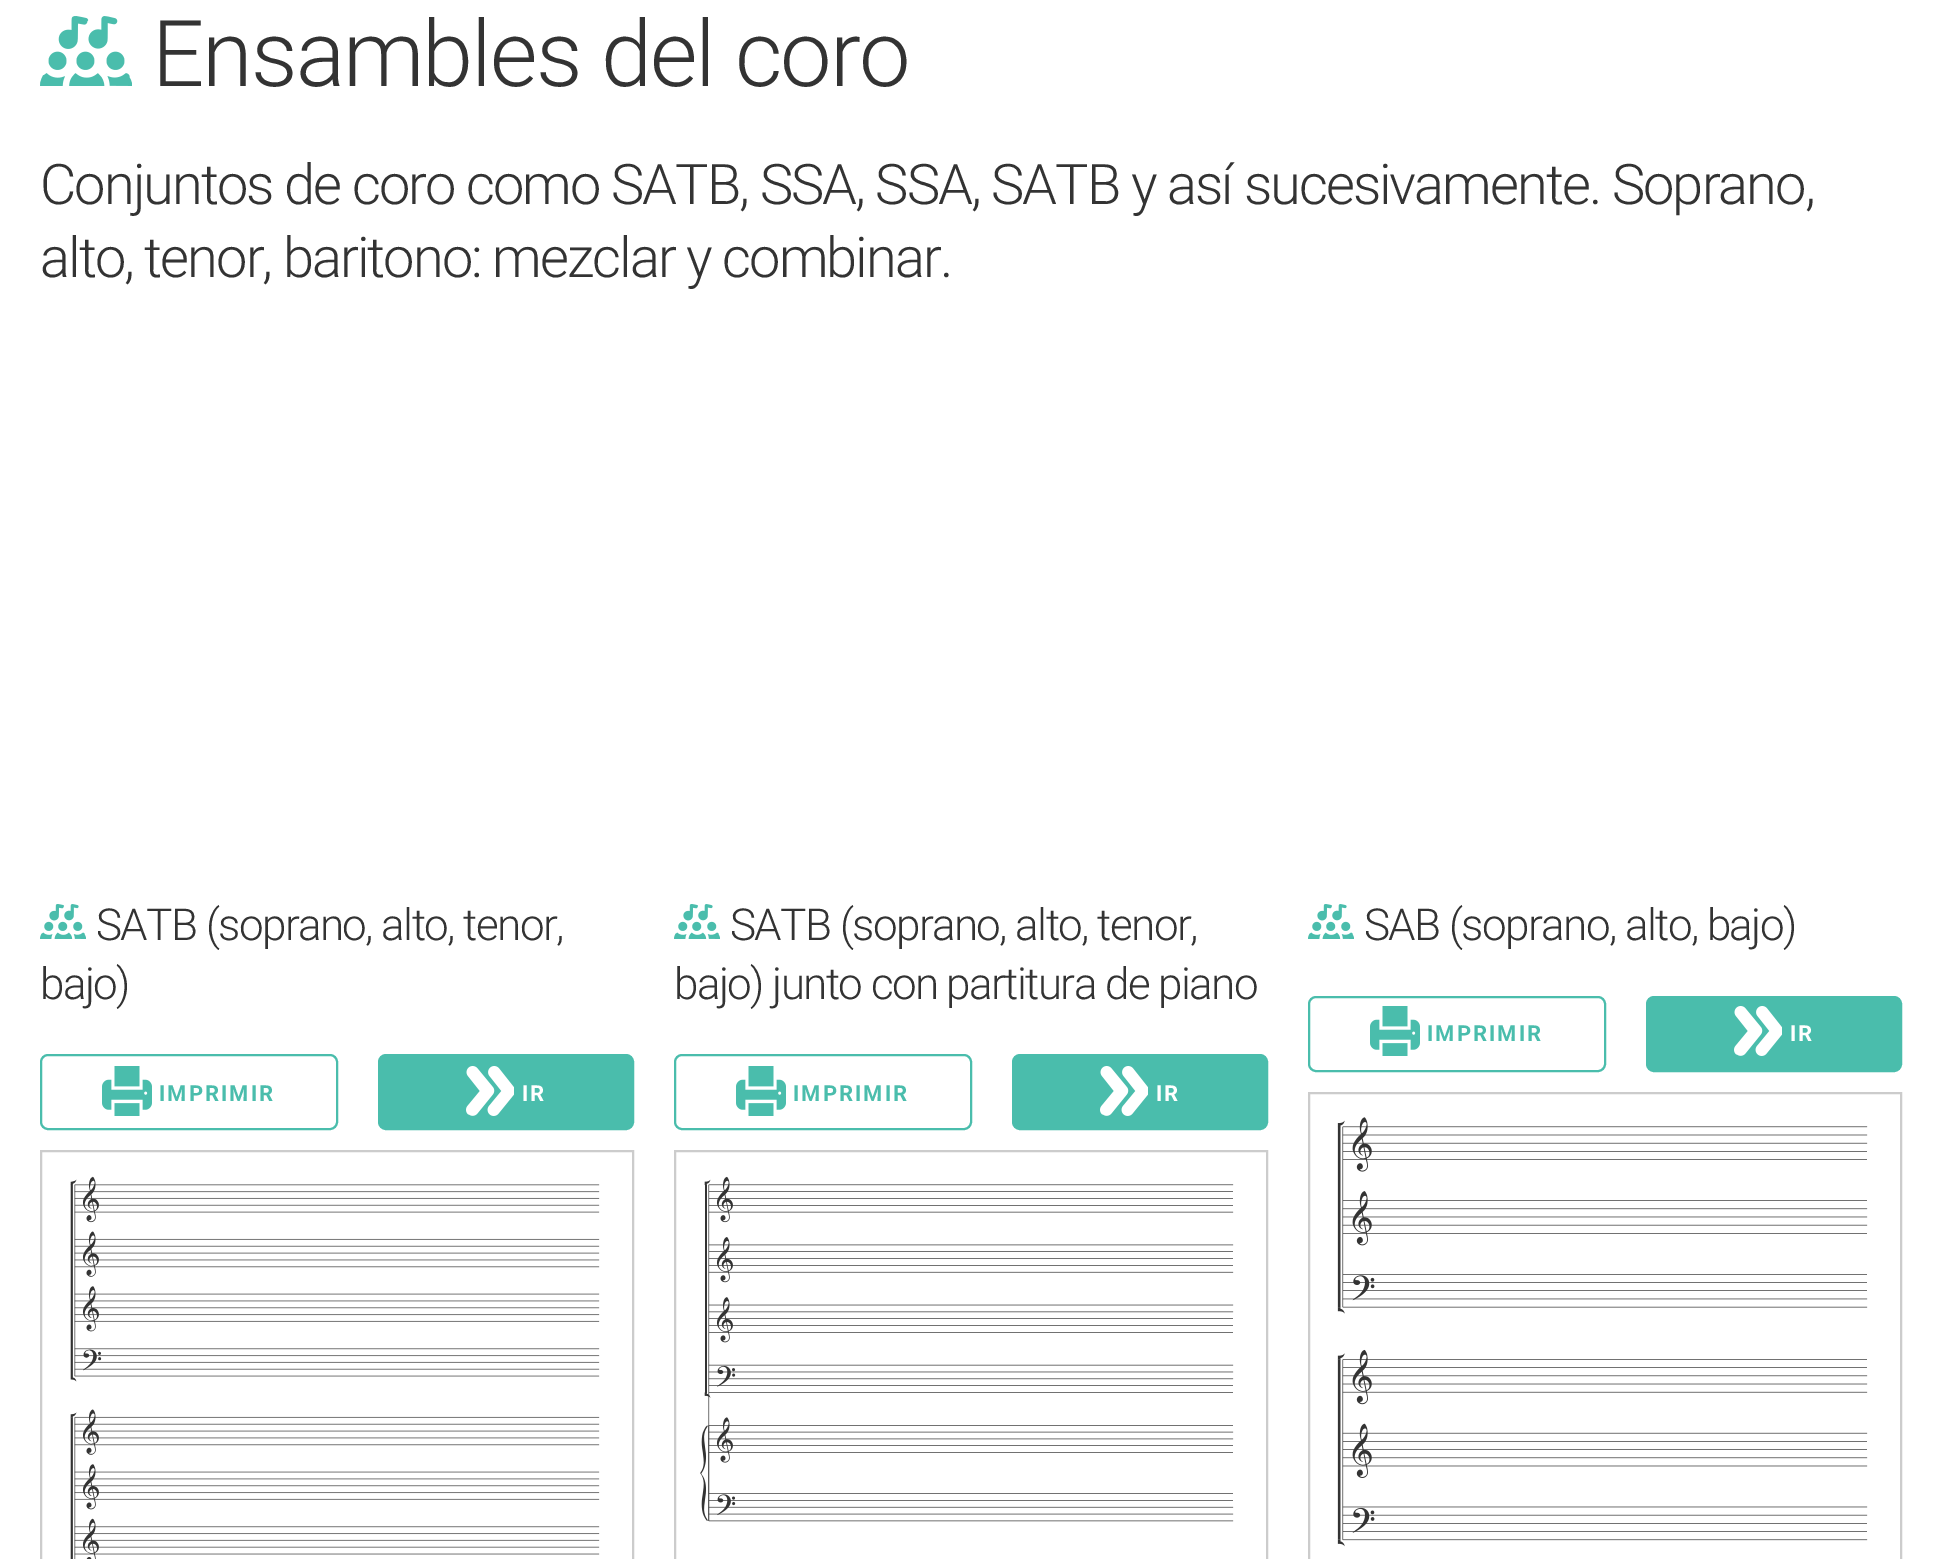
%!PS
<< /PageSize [1942 1559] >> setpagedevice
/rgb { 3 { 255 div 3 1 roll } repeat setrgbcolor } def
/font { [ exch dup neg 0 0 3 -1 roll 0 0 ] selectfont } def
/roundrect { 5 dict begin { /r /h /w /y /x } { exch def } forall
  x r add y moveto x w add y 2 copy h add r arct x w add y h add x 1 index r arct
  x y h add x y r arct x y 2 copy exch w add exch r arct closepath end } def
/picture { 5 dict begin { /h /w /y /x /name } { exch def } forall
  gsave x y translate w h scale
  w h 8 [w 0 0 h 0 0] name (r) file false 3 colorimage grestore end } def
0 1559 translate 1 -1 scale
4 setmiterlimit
255 255 255 rgb
0 0 1942 1559 rectfill
(img_01.rgb) 40 16 92 70 picture
(img_02.rgb) 40 904 46 35 picture
74 189 172 rgb
2 setlinewidth
41 1055 296 74 7 roundrect stroke
(img_03.rgb) 102 1066 50 50 picture
379 1055 254 74 7 roundrect gsave fill grestore
stroke
(img_04.rgb) 466 1066 48 50 picture
204 204 204 rgb
41 1151 592 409 rectstroke
(img_05.rgb) 70 1176 530 383 picture
(img_02.rgb) 674 904 46 35 picture
74 189 172 rgb
675 1055 296 74 7 roundrect stroke
(img_03.rgb) 736 1066 50 50 picture
1013 1055 254 74 7 roundrect gsave fill grestore
stroke
(img_04.rgb) 1100 1066 48 50 picture
204 204 204 rgb
675 1151 592 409 rectstroke
(img_06.rgb) 700 1176 534 346 picture
(img_02.rgb) 1308 904 46 35 picture
74 189 172 rgb
1309 997 296 74 7 roundrect stroke
(img_03.rgb) 1370 1006 50 50 picture
1647 997 254 74 7 roundrect gsave fill grestore
stroke
(img_04.rgb) 1734 1006 48 50 picture
204 204 204 rgb
1309 1093 592 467 rectstroke
(img_07.rgb) 1337 1117 531 430 picture
/Roboto-Light 92 font
51 51 51 rgb
152 86 moveto -2 0 (Ensambles del coro) ashow
/Roboto-Light 56 font
40 204 moveto -2 0 (Conjuntos de coro como SATB, SSA, SSA, SATB y así sucesivamente. Soprano,) ashow
40 277 moveto -2 0 (alto, tenor, baritono: mezclar y combinar.) ashow
/Roboto-Light 44 font
96 940 moveto -1.6 0 (SATB \(soprano, alto, tenor,) ashow
40 999 moveto -1.6 0 (bajo\)) ashow
/Roboto-Bold 22 font
74 189 172 rgb
159 1101 moveto 2 0 (IMPRIMIR) ashow
255 255 255 rgb
522 1101 moveto 2 0 (IR) ashow
/Roboto-Light 44 font
51 51 51 rgb
730 940 moveto -1.6 0 (SATB \(soprano, alto, tenor,) ashow
674 999 moveto -1.6 0 (bajo\) junto con partitura de piano) ashow
/Roboto-Bold 22 font
74 189 172 rgb
793 1101 moveto 2 0 (IMPRIMIR) ashow
255 255 255 rgb
1156 1101 moveto 2 0 (IR) ashow
/Roboto-Light 44 font
51 51 51 rgb
1364 940 moveto -1.6 0 (SAB \(soprano, alto, bajo\)) ashow
/Roboto-Bold 22 font
74 189 172 rgb
1427 1041 moveto 2 0 (IMPRIMIR) ashow
255 255 255 rgb
1790 1041 moveto 2 0 (IR) ashow
showpage
